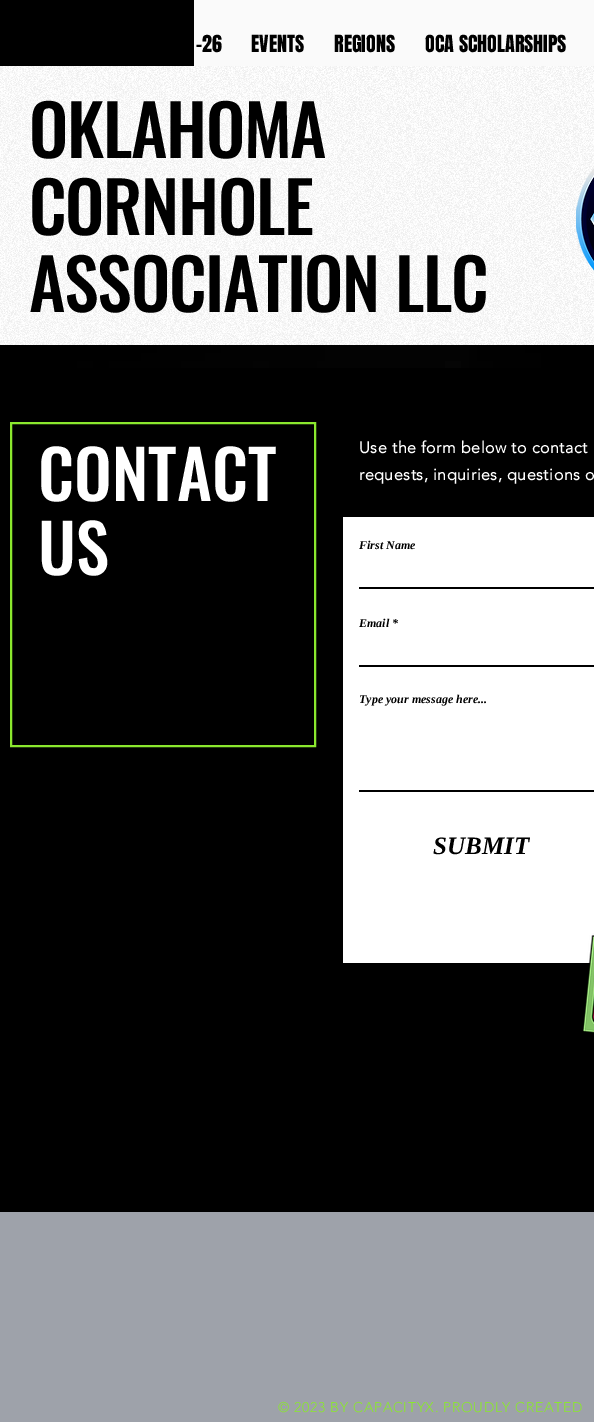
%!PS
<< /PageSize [594 1422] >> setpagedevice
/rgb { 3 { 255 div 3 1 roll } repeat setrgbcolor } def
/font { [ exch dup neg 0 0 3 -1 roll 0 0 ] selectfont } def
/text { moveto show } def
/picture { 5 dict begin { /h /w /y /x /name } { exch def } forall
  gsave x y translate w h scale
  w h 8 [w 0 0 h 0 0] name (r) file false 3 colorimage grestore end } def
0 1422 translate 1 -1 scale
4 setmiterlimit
255 255 255 rgb
0 0 594 1422 rectfill
0 0 0 rgb
0 0 194 66 rectfill
250 250 250 rgb
194 0 400 66 rectfill
(img_03.rgb) 0 66 594 279 picture
(img_01.rgb) 576 168 18 103 picture
(img_02.rgb) 0 345 594 23 picture
0 0 0 rgb
0 368 594 844 rectfill
139 232 46 rgb
2 setlinewidth
11 423 304 323 rectstroke
255 255 255 rgb
343 517 251 446 rectfill
0 0 0 rgb
359 587 235 2 rectfill
359 665 235 2 rectfill
359 790 235 2 rectfill
(img_04.rgb) 583 933 11 100 picture
158 162 170 rgb
0 1212 594 210 rectfill
/Anton-Regular 20 font
0 0 0 rgb
(-26) 196 52 text
(EVENTS) 251 52 text
(REGIONS) 334 52 text
(OCA SCHOLARSHIPS) 425 52 text
/Oswald-Medium 70 font
29 158 moveto -1.4 0 (OKLAHOMA) ashow
29 235 moveto -1.4 0 (CORNHOLE) ashow
29 312 moveto -1.4 0 (ASSOCIATION LLC) ashow
/Oswald-Medium 67 font
255 255 255 rgb
(CONTACT) 38 501 text
(US) 38 575 text
/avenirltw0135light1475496-Bold 16 font
359 453 moveto 0.5 0 (Use the form below to contact) ashow
359 480 moveto 0.5 0 (requests, inquiries, questions o) ashow
/LiberationSerif-BoldItalic 12 font
0 0 0 rgb
(First Name) 359 549 text
(Email *) 359 627 text
(Type your message here...) 359 703 text
/LiberationSerif-BoldItalic 25 font
(SUBMIT) 433 854 text
/avenirltw0135light1475496-Light 14 font
139 232 46 rgb
278 1412 moveto 0.7 0 (© 2023 BY CAPACITYX. PROUDLY CREATED) ashow
showpage
